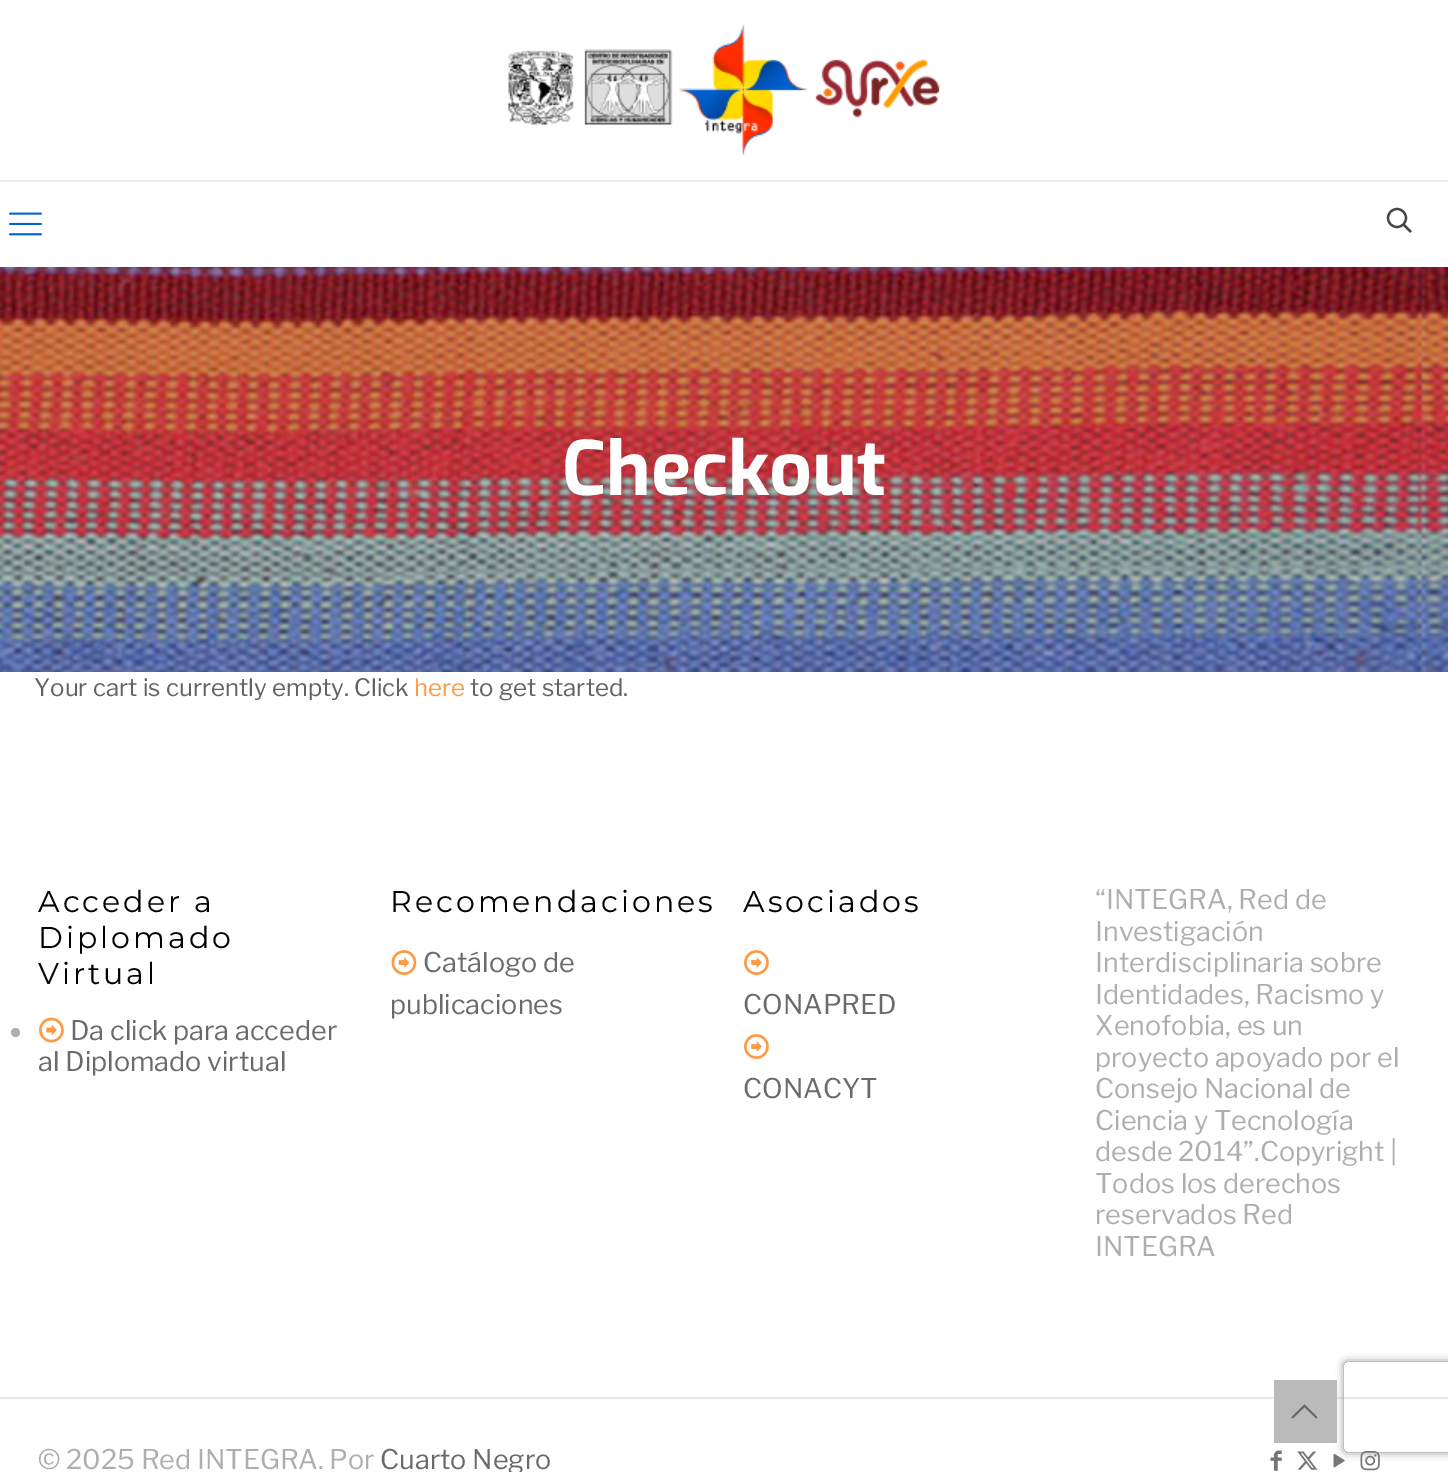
%!PS
<< /PageSize [1448 1472] /PageUsesTransparency true >> setpagedevice
/rgb { 3 { 255 div 3 1 roll } repeat setrgbcolor } def
/font { [ exch dup neg 0 0 3 -1 roll 0 0 ] selectfont } def
/text { moveto show } def
/alpha { dup .setfillconstantalpha .setstrokeconstantalpha } def
/circle { newpath 0 360 arc closepath } def
/roundrect { 5 dict begin { /r /h /w /y /x } { exch def } forall
  x r add y moveto x w add y 2 copy h add r arct x w add y h add x 1 index r arct
  x y h add x y r arct x y 2 copy exch w add exch r arct closepath end } def
/shadow { 12 dict begin { /a /b /q /h /w /y /x } { exch def } forall gsave /was 0 def
  9 -2 -9 { dup b mul 4 div /e exch def 1 sub .425 mul 2.718 exch exp 1 add a .99 .min exch div /now exch def
    1 1 now sub 1 was sub div sub alpha /was now def
    w h .min e 2 mul add 0 gt { x e sub y e sub w e 2 mul add h e 2 mul add
      q e add b .6 mul add w h .min 2 div e add .min 0 .max roundrect fill } if } for grestore end } def
/picture { 5 dict begin { /h /w /y /x /name } { exch def } forall
  gsave x y translate w h scale
  w h 8 [w 0 0 h 0 0] name (r) file false 3 colorimage grestore end } def
0 .pushpdf14devicefilter
0 1472 translate 1 -1 scale
4 setmiterlimit
255 255 255 rgb
0 0 1448 1472 rectfill
(img_01.rgb) 0 267 1448 405 picture
235 235 235 rgb
0 180 1448 2 rectfill
(img_02.rgb) 507 24 433 131 picture
(img_03.rgb) 9 212 33 24 picture
68 68 68 rgb
2.2 setlinewidth
1397 218 9 circle stroke
1403.5 224.5 moveto 7.5 7.5 rlineto stroke
174 174 174 rgb
15.5 1032.5 4.5 circle fill
(img_04.rgb) 39 1017 25 26 picture
(img_05.rgb) 391 950 26 25 picture
(img_06.rgb) 744 950 25 25 picture
(img_06.rgb) 744 1034 25 25 picture
230 230 230 rgb
0 1397 1448 2 rectfill
(img_07.rgb) 1270 1450 12 21 picture
(img_08.rgb) 1297 1451 21 19 picture
(img_09.rgb) 1333 1453 12 15 picture
(img_10.rgb) 1360 1451 20 20 picture
gsave
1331 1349 moveto 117 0 rlineto 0 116 rlineto -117 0 rlineto closepath 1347 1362 moveto 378 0 rlineto 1.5 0 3 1.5 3 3 rcurveto 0 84 rlineto 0 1.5 -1.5 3 -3 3 rcurveto -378 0 rlineto -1.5 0 -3 -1.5 -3 -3 rcurveto 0 -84 rlineto 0 -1.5 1.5 -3 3 -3 rcurveto closepath eoclip newpath
128 128 128 rgb
1344 1362 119 90 3 4 1 shadow
grestore
186 186 186 rgb
1274 1380 63 63 rectfill
(img_11.rgb) 1291 1404 27 15 picture
/Exo-Bold 75 font
255 255 255 rgb
(Checkout) 562 495 text
/LibreFranklin-Regular 24 font
98 98 98 rgb
(Your cart is currently empty. Click) 34 696 text
255 154 66 rgb
(here) 414 696 text
98 98 98 rgb
(to get started.) 470 696 text
/Montserrat-Regular 30 font
0 0 0 rgb
38 912 moveto 3 0 (Acceder a) ashow
38 948 moveto 3 0 (Diplomado) ashow
38 984 moveto 3 0 (Virtual) ashow
/LibreFranklin-Regular 27 font
106 106 106 rgb
(Da click para acceder) 70 1040 text
(al Diplomado virtual) 38 1071 text
/Montserrat-Regular 30 font
0 0 0 rgb
390 912 moveto 3 0 (Recomendaciones) ashow
/LibreFranklin-Regular 27 font
106 106 106 rgb
(Catálogo de) 423 972 text
(publicaciones) 390 1014 text
/Montserrat-Regular 30 font
0 0 0 rgb
743 912 moveto 3 0 (Asociados) ashow
/LibreFranklin-Regular 27 font
106 106 106 rgb
(CONAPRED) 743 1014 text
(CONACYT) 743 1098 text
174 174 174 rgb
(“INTEGRA, Red de) 1095 909 text
(Investigación) 1095 941 text
(Interdisciplinaria sobre) 1095 972 text
(Identidades, Racismo y) 1095 1004 text
(Xenofobia, es un) 1095 1035 text
(proyecto apoyado por el) 1095 1067 text
(Consejo Nacional de) 1095 1098 text
(Ciencia y Tecnología) 1095 1130 text
(desde 2014”.Copyright |) 1095 1161 text
(Todos los derechos) 1095 1193 text
(reservados Red) 1095 1224 text
(INTEGRA) 1095 1256 text
(© 2025 Red INTEGRA. Por) 38 1469 text
106 106 106 rgb
(Cuarto Negro) 380 1469 text
.poppdf14devicefilter showpage
